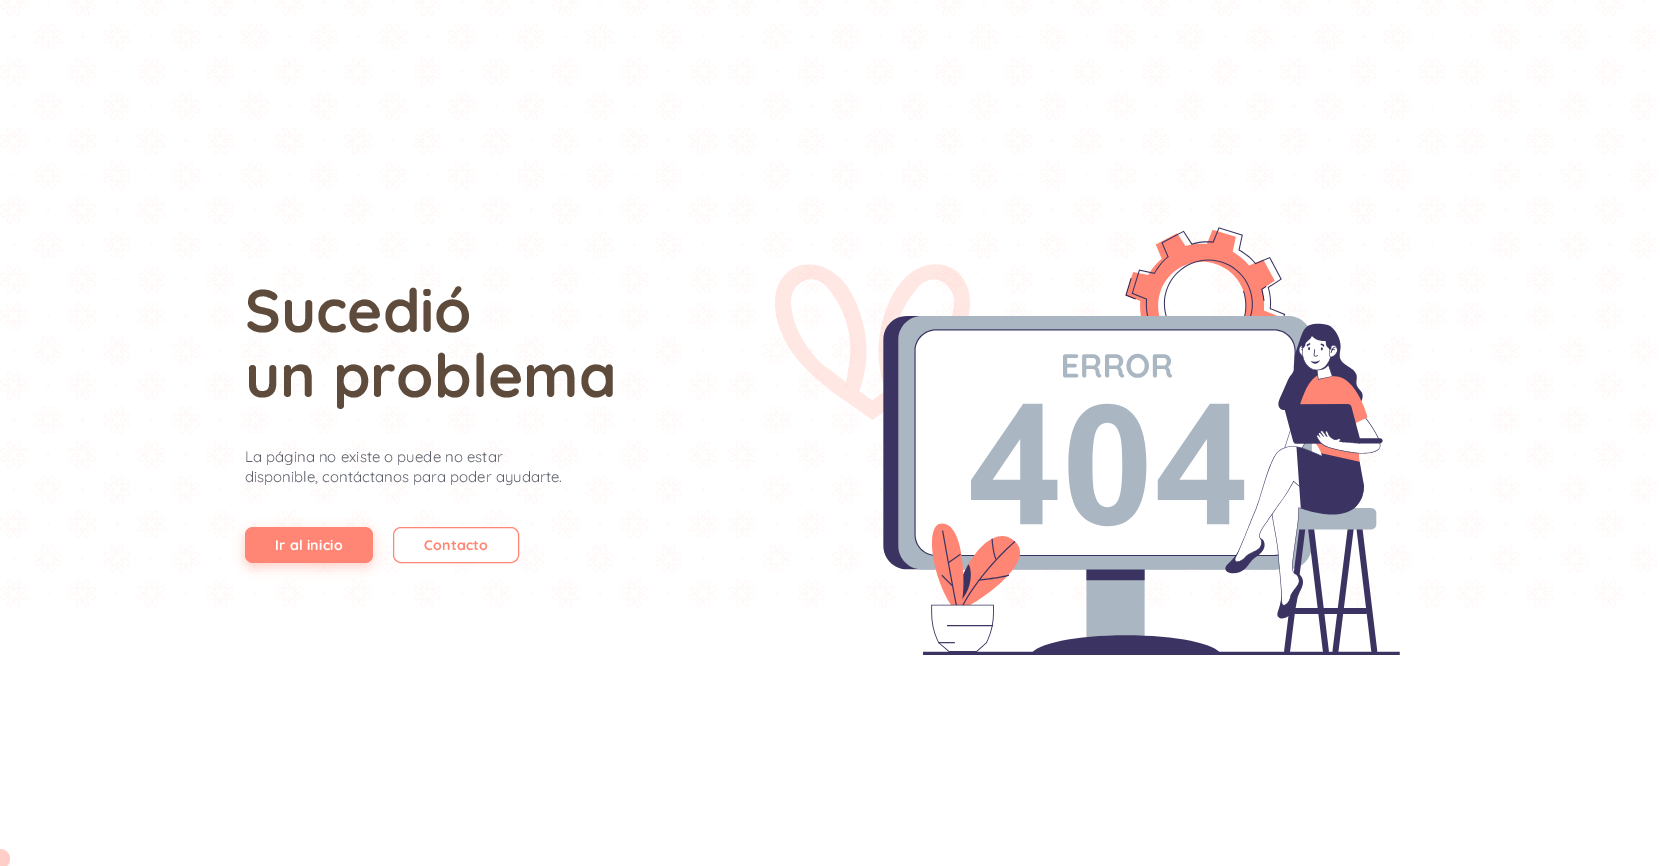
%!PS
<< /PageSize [1660 866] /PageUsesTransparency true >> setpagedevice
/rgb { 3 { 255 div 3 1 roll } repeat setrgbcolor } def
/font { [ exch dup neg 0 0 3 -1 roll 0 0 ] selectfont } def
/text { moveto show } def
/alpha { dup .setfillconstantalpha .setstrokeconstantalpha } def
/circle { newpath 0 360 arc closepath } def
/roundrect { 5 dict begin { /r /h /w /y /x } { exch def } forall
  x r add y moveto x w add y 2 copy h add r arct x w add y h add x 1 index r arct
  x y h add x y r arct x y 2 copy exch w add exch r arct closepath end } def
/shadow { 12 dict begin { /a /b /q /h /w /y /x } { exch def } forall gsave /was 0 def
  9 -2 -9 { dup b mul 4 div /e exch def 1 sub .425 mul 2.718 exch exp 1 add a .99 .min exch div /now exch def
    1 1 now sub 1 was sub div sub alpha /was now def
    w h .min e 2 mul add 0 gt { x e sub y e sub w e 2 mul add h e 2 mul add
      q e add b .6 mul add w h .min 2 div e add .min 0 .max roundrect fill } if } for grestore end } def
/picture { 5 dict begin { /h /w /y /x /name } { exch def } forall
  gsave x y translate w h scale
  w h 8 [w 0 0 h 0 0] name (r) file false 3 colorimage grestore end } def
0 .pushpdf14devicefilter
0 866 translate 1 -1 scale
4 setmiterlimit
255 255 255 rgb
0 0 1660 866 rectfill
(img_01.rgb) 0 0 1657 607 picture
255 134 116 rgb
245 531 128 36 8 6 0.4 shadow
245 527 128 36 8 roundrect fill
255 255 255 rgb
393.5 527.5 125 35 7.5 roundrect gsave fill grestore
255 134 116 rgb
stroke
(img_02.rgb) 775 227 625 428 picture
255 207 199 rgb
0 859 10 circle fill
/Quicksand-Bold 60 font
94 75 60 rgb
(Sucedió) 245 332 text
(un problema) 245 397 text
/Quicksand-Regular 15 font
92 95 106 rgb
(La página no existe o puede no estar) 245 462 text
(disponible, contáctanos para poder ayudarte.) 245 482 text
/Quicksand-Bold 14 font
255 255 255 rgb
275 550 moveto 0.25 0 (Ir al inicio) ashow
255 134 116 rgb
424 550 moveto 0.25 0 (Contacto) ashow
.poppdf14devicefilter showpage
